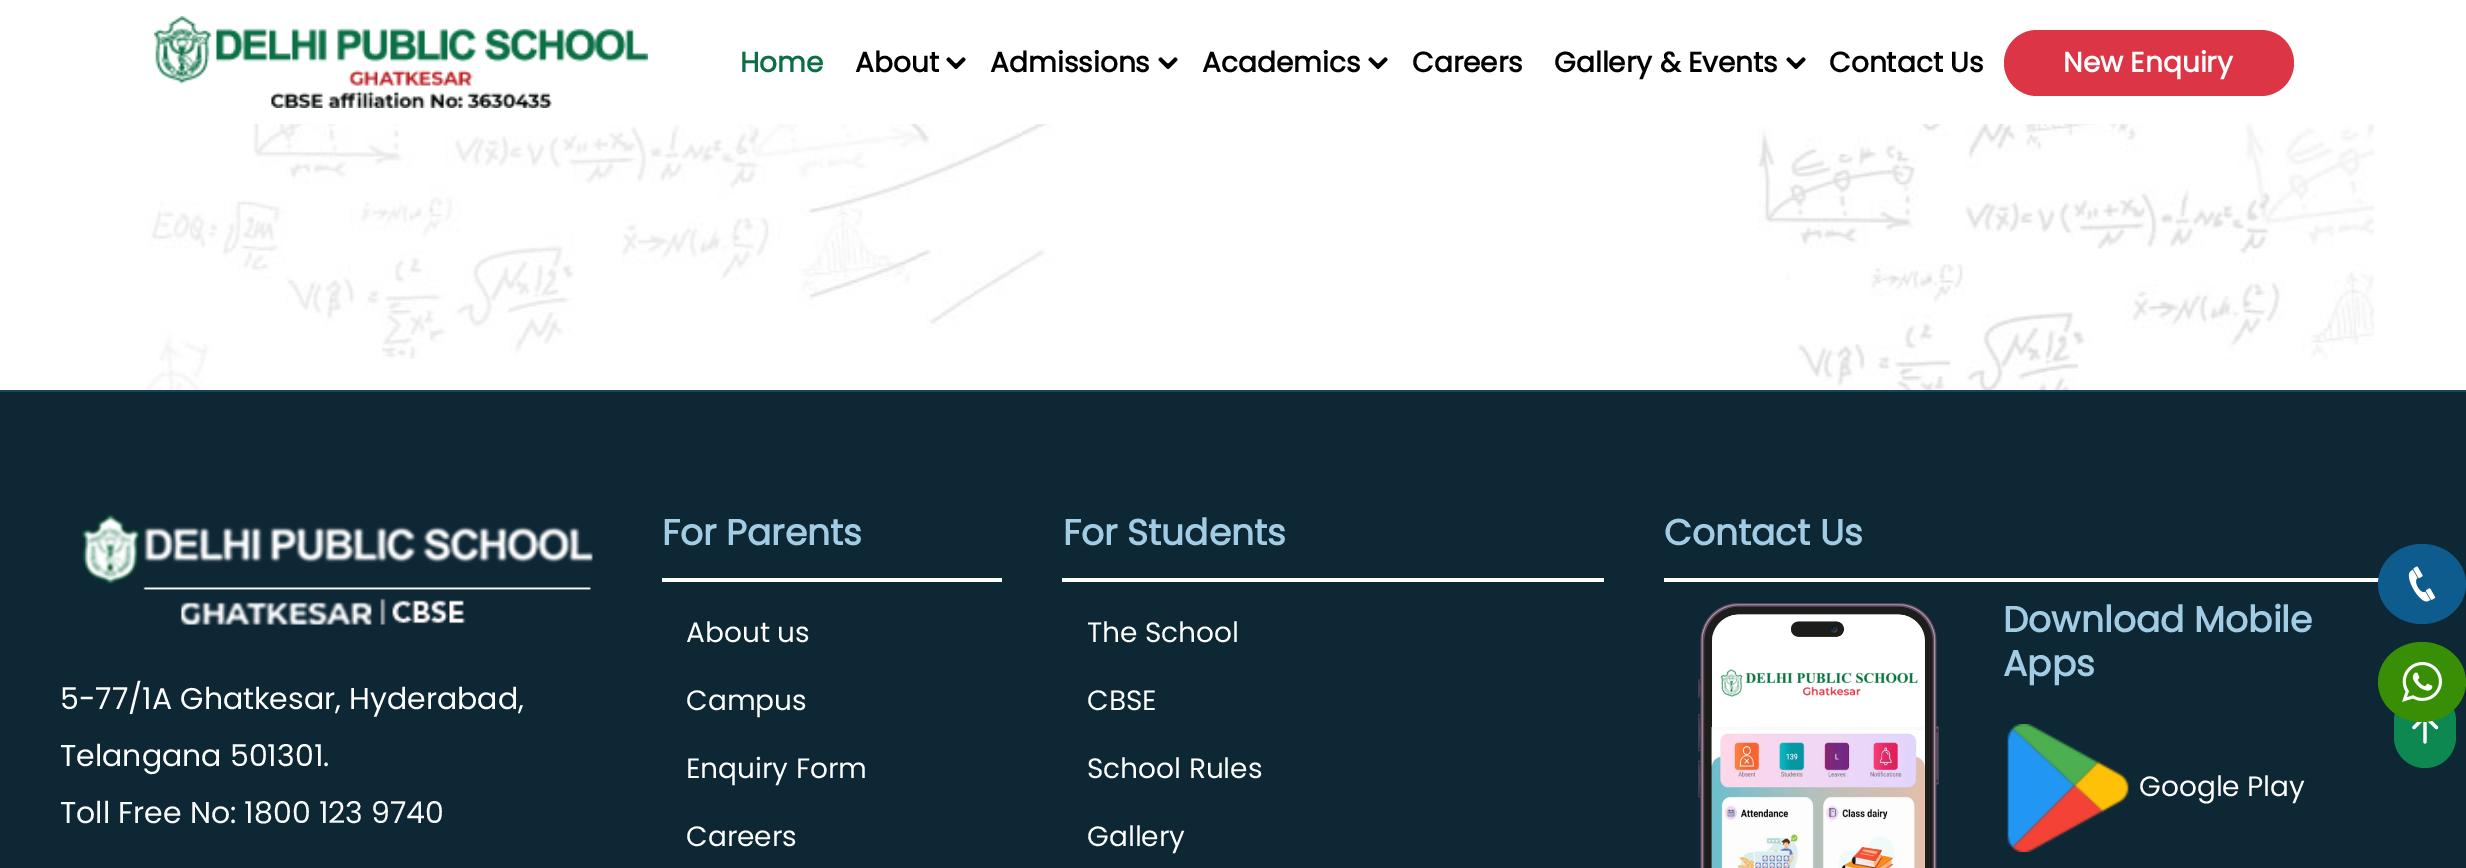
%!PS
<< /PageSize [2466 868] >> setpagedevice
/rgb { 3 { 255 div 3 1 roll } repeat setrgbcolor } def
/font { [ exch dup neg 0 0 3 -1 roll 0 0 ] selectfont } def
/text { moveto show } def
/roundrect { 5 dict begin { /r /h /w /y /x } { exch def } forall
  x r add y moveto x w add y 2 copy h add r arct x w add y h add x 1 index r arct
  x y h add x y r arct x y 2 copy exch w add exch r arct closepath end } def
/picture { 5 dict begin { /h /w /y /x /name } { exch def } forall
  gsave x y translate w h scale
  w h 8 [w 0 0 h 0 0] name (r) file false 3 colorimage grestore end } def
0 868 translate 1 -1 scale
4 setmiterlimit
255 255 255 rgb
0 0 2466 868 rectfill
(img_01.rgb) 154 16 494 92 picture
(img_02.rgb) 946 57 20 13 picture
(img_02.rgb) 1158 57 20 13 picture
(img_02.rgb) 1368 57 20 13 picture
(img_02.rgb) 1786 57 20 13 picture
220 53 69 rgb
2004 30 290 66 33 roundrect fill
(img_03.rgb) 145 124 2229 266 picture
13 39 53 rgb
0 392 2466 476 rectfill
23 69 94 rgb
0 390 2466 2 rectfill
(img_04.rgb) 81 514 512 111 picture
255 255 255 rgb
662 578 340 4 rectfill
1062 578 542 4 rectfill
1664 578 715 4 rectfill
(img_05.rgb) 1698 603 241 265 picture
(img_06.rgb) 2007 724 122 128 picture
13 92 141 rgb
2422 544 moveto 24.5 0 44 18 44 40 rcurveto 0 22 -19.5 40 -44 40 rcurveto -24.5 0 -44 -18 -44 -40 rcurveto 0 -22 19.5 -40 44 -40 rcurveto closepath fill
(img_07.rgb) 2408 566 28 36 picture
12 136 80 rgb
2394 690 62 78 31 roundrect fill
255 255 255 rgb
3.2 setlinewidth
1 setlinecap
1 setlinejoin
2425 742 moveto 0 -25.5 rlineto 2414 727.5 moveto 11 -11 rlineto 11.5 11 rlineto stroke
56 143 6 rgb
2422 642 moveto 24.5 0 44 18 44 40 rcurveto 0 22 -19.5 40 -44 40 rcurveto -24.5 0 -44 -18 -44 -40 rcurveto 0 -22 19.5 -40 44 -40 rcurveto closepath fill
(img_08.rgb) 2402 662 40 40 picture
/Poppins-Bold 28 font
12 111 68 rgb
(Home) 740 72 text
0 0 0 rgb
(About) 855 72 text
(Admissions) 990 72 text
(Academics) 1202 72 text
(Careers) 1412 72 text
(Gallery & Events) 1554 72 text
(Contact Us) 1829 72 text
255 255 255 rgb
(New Enquiry) 2063 72 text
/Poppins-Regular 30 font
(5-77/1A Ghatkesar, Hyderabad,) 60 709 text
(Telangana 501301.) 60 766 text
248 249 250 rgb
(Toll Free No: 1800 123 9740) 60 823 text
/Poppins-Bold 36 font
162 204 227 rgb
(For Parents) 662 545 text
/Poppins-Regular 28 font
255 255 255 rgb
(About us) 686 642 text
(Campus) 686 710 text
(Enquiry Form) 686 778 text
(Careers) 686 846 text
/Poppins-Bold 36 font
162 204 227 rgb
(For Students) 1063 545 text
/Poppins-Regular 28 font
255 255 255 rgb
(The School) 1087 642 text
(CBSE) 1087 710 text
(School Rules) 1087 778 text
(Gallery) 1087 846 text
/Poppins-Bold 36 font
162 204 227 rgb
(Contact Us) 1664 545 text
(Download Mobile) 2003 632 text
(Apps) 2003 676 text
/Poppins-Regular 28 font
255 255 255 rgb
(Google Play) 2139 796 text
showpage
